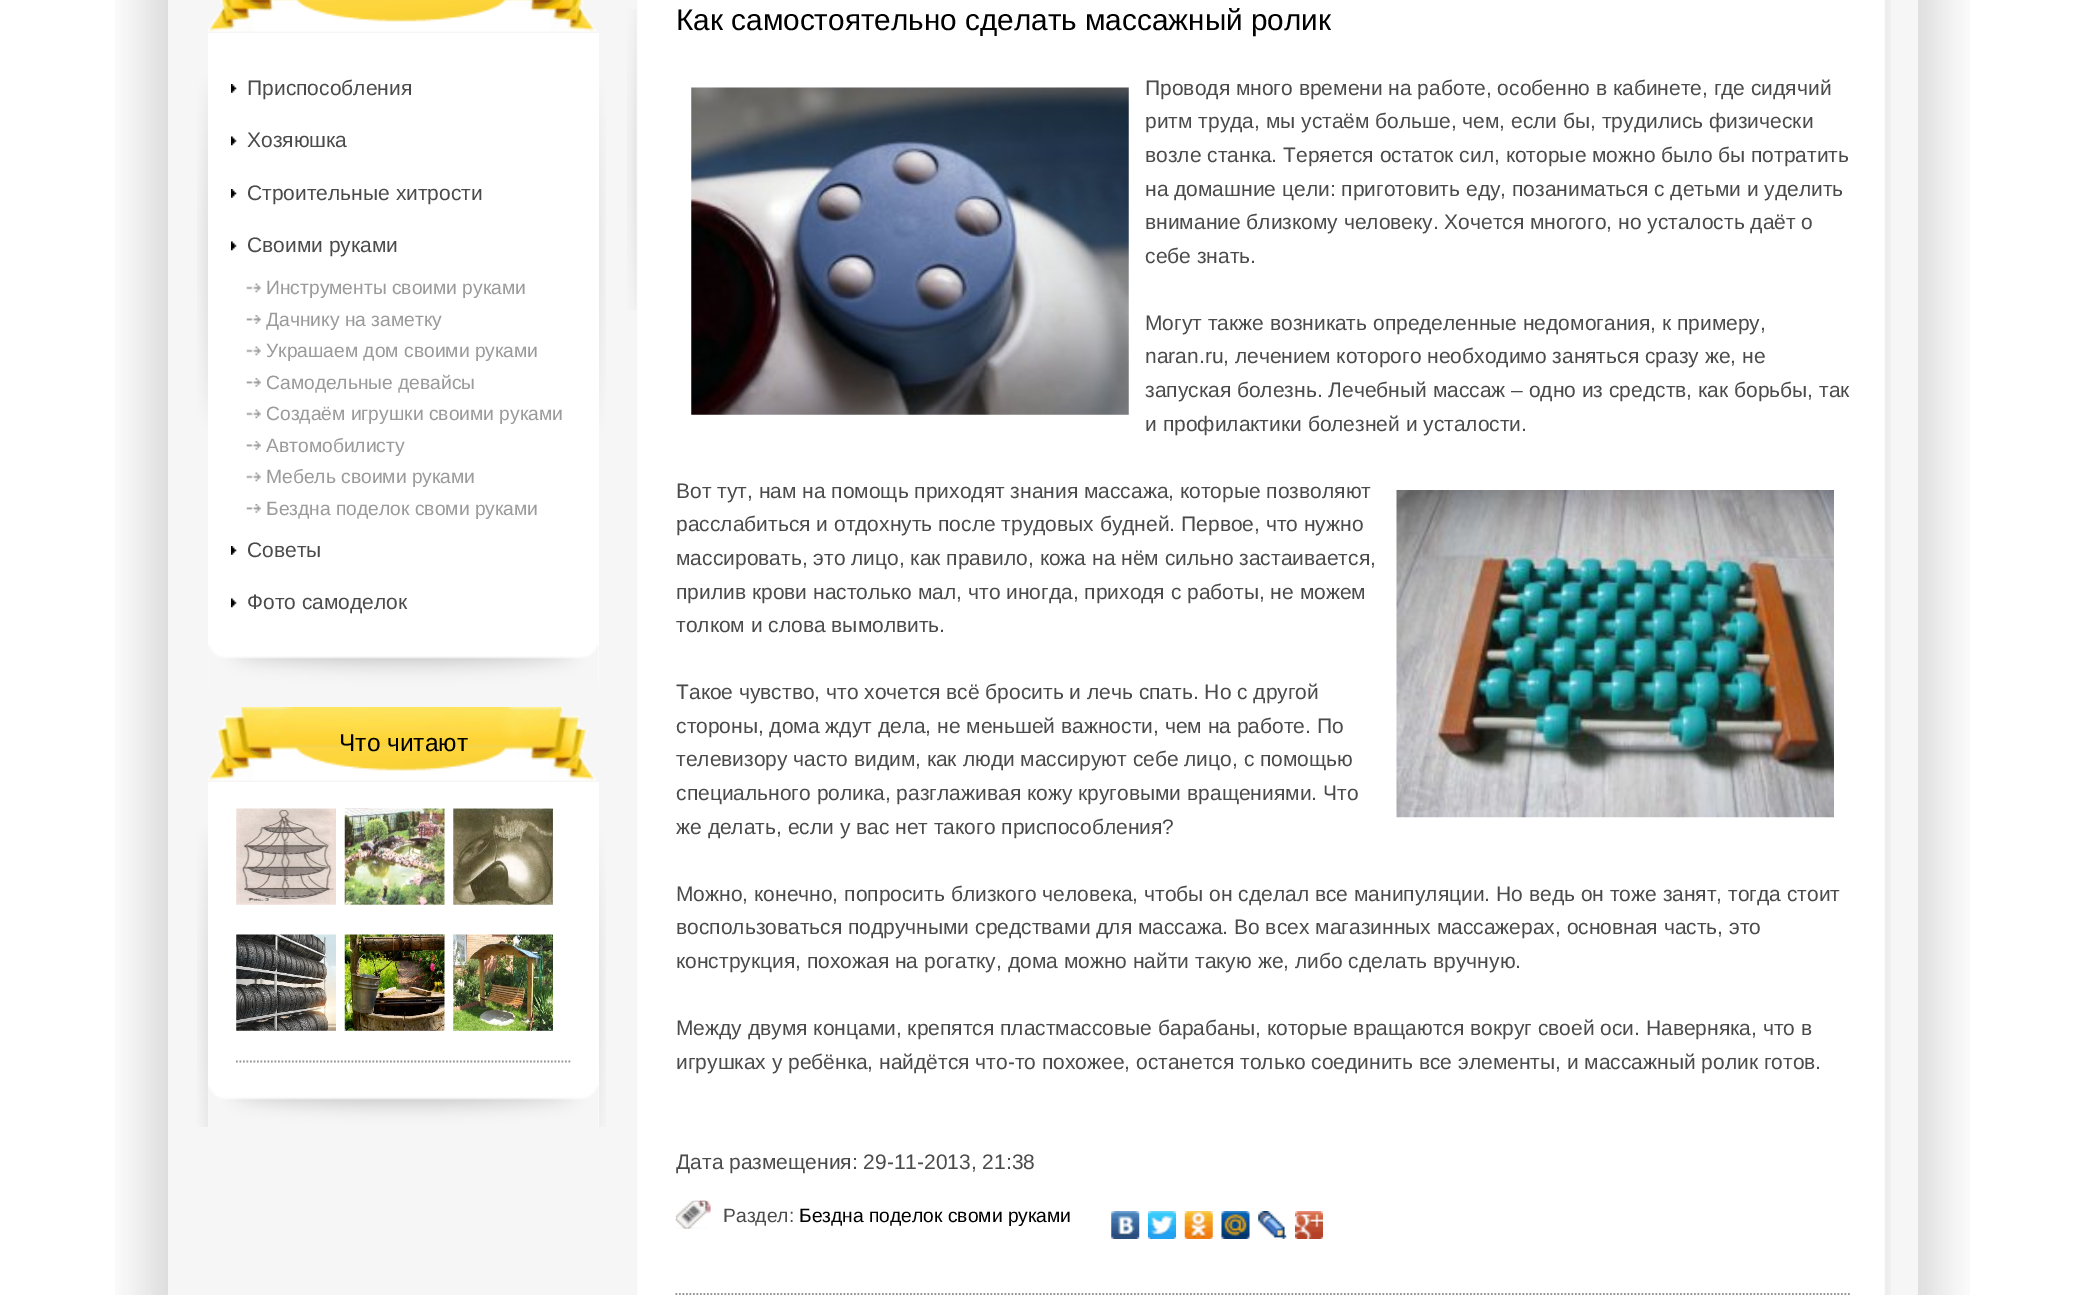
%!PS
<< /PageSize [2082 1295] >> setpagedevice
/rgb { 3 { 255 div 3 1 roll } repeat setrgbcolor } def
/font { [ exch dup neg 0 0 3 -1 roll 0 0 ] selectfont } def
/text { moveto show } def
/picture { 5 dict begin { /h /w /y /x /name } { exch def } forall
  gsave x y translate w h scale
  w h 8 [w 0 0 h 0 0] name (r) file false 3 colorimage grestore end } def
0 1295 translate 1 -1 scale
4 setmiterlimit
255 255 255 rgb
0 0 2082 1295 rectfill
(img_01.rgb) 115 0 53 1295 picture
(img_02.rgb) 1918 0 52 1295 picture
246 246 246 rgb
168 0 1750 1295 rectfill
(img_03.rgb) 208 0 389 32 picture
(img_04.rgb) 197 34 409 433 picture
255 255 255 rgb
208 33 391 653 rectfill
(img_05.rgb) 208 645 391 41 picture
(img_06.rgb) 231 84 6 9 picture
(img_07.rgb) 231 136 6 10 picture
(img_06.rgb) 231 189 6 9 picture
(img_07.rgb) 231 241 6 10 picture
(img_08.rgb) 246 283 15 10 picture
(img_09.rgb) 246 315 15 9 picture
(img_08.rgb) 246 346 15 10 picture
(img_09.rgb) 246 378 15 9 picture
(img_08.rgb) 246 409 15 10 picture
(img_09.rgb) 246 441 15 9 picture
(img_08.rgb) 246 472 15 10 picture
(img_09.rgb) 246 504 15 9 picture
(img_06.rgb) 231 546 6 9 picture
(img_07.rgb) 231 598 6 10 picture
(img_10.rgb) 208 707 389 74 picture
(img_11.rgb) 197 783 409 344 picture
208 782 391 345 rectfill
(img_05.rgb) 208 1086 391 41 picture
149 149 150 rgb
1.8 setlinewidth
[1.75 1.75] 0 setdash
236 1061.5 moveto 334.5 0 rlineto stroke
(img_12.rgb) 236 808 100 97 picture
(img_13.rgb) 344 808 101 97 picture
(img_14.rgb) 453 808 100 97 picture
(img_15.rgb) 236 934 100 97 picture
(img_16.rgb) 344 934 101 97 picture
(img_17.rgb) 453 934 100 97 picture
(img_18.rgb) 637 0 1254 1295 picture
(img_19.rgb) 627 9 10 301 picture
675.5 1294 moveto 1174.5 0 rlineto stroke
(img_20.rgb) 691 87 438 328 picture
(img_21.rgb) 1396 490 438 328 picture
(img_22.rgb) 675 1200 36 29 picture
(img_23.rgb) 1111 1211 29 28 picture
(img_24.rgb) 1148 1211 28 28 picture
(img_25.rgb) 1184 1211 29 28 picture
(img_26.rgb) 1221 1211 29 28 picture
(img_27.rgb) 1258 1211 29 28 picture
(img_28.rgb) 1295 1211 28 28 picture
/LiberationSans-Regular 21 font
75 75 75 rgb
(Приспособления) 247 95 text
(Хозяюшка) 247 147 text
(Строительные хитрости) 247 200 text
(Своими руками) 247 252 text
/LiberationSans-Regular 19.25 font
156 155 155 rgb
(Инструменты своими руками) 266 294 text
(Дачнику на заметку) 266 326 text
(Украшаем дом своими руками) 266 357 text
(Самодельные девайсы) 266 389 text
(Создаём игрушки своими руками) 266 420 text
(Автомобилисту) 266 452 text
(Мебель своими руками) 266 483 text
(Бездна поделок своми руками) 266 515 text
/LiberationSans-Regular 21 font
75 75 75 rgb
(Советы) 247 557 text
(Фото самоделок) 247 609 text
/LiberationSans-Regular 24.5 font
0 0 0 rgb
(Что читают) 339 751 text
/LiberationSans-Regular 29.75 font
(Как самостоятельно сделать массажный ролик) 676 30 text
/LiberationSans-Regular 21 font
75 75 75 rgb
(Проводя много времени на работе, особенно в кабинете, где сидячий) 1145 95 text
(ритм труда, мы устаём больше, чем, если бы, трудились физически) 1145 128 text
(возле станка. Теряется остаток сил, которые можно было бы потратить) 1145 162 text
(на домашние цели: приготовить еду, позаниматься с детьми и уделить) 1145 196 text
(внимание близкому человеку. Хочется многого, но усталость даёт о) 1145 229 text
(себе знать.) 1145 263 text
(Могут также возникать определенные недомогания, к примеру,) 1145 330 text
(naran.ru) 1145 363 text
(, лечением которого необходимо заняться сразу же, не) 1223 363 text
(запуская болезнь. Лечебный массаж – одно из средств, как борьбы, так) 1145 397 text
(и профилактики болезней и усталости.) 1145 431 text
(Вот тут, нам на помощь приходят знания массажа, которые позволяют) 676 498 text
(расслабиться и отдохнуть после трудовых будней. Первое, что нужно) 676 531 text
(массировать, это лицо, как правило, кожа на нём сильно застаивается,) 676 565 text
(прилив крови настолько мал, что иногда, приходя с работы, не можем) 676 599 text
(толком и слова вымолвить.) 676 632 text
(Такое чувство, что хочется всё бросить и лечь спать. Но с другой) 676 699 text
(стороны, дома ждут дела, не меньшей важности, чем на работе. По) 676 733 text
(телевизору часто видим, как люди массируют себе лицо, с помощью) 676 766 text
(специального ролика, разглаживая кожу круговыми вращениями. Что) 676 800 text
(же делать, если у вас нет такого приспособления?) 676 834 text
(Можно, конечно, попросить близкого человека, чтобы он сделал все манипуляции. Но ведь он тоже занят, тогда стоит) 676 901 text
(воспользоваться подручными средствами для массажа. Во всех магазинных массажерах, основная часть, это) 676 934 text
(конструкция, похожая на рогатку, дома можно найти такую же, либо сделать вручную.) 676 968 text
(Между двумя концами, крепятся пластмассовые барабаны, которые вращаются вокруг своей оси. Наверняка, что в) 676 1035 text
(игрушках у ребёнка, найдётся что-то похожее, останется только соединить все элементы, и массажный ролик готов.) 676 1069 text
gsave
676 0 1174 1293 rectclip
(Дата размещения: 29-11-2013, 21:38) 676 1169 text
grestore
/LiberationSans-Regular 19.25 font
(Раздел:) 723 1222 text
0 0 0 rgb
(Бездна поделок своми руками) 799 1222 text
showpage
